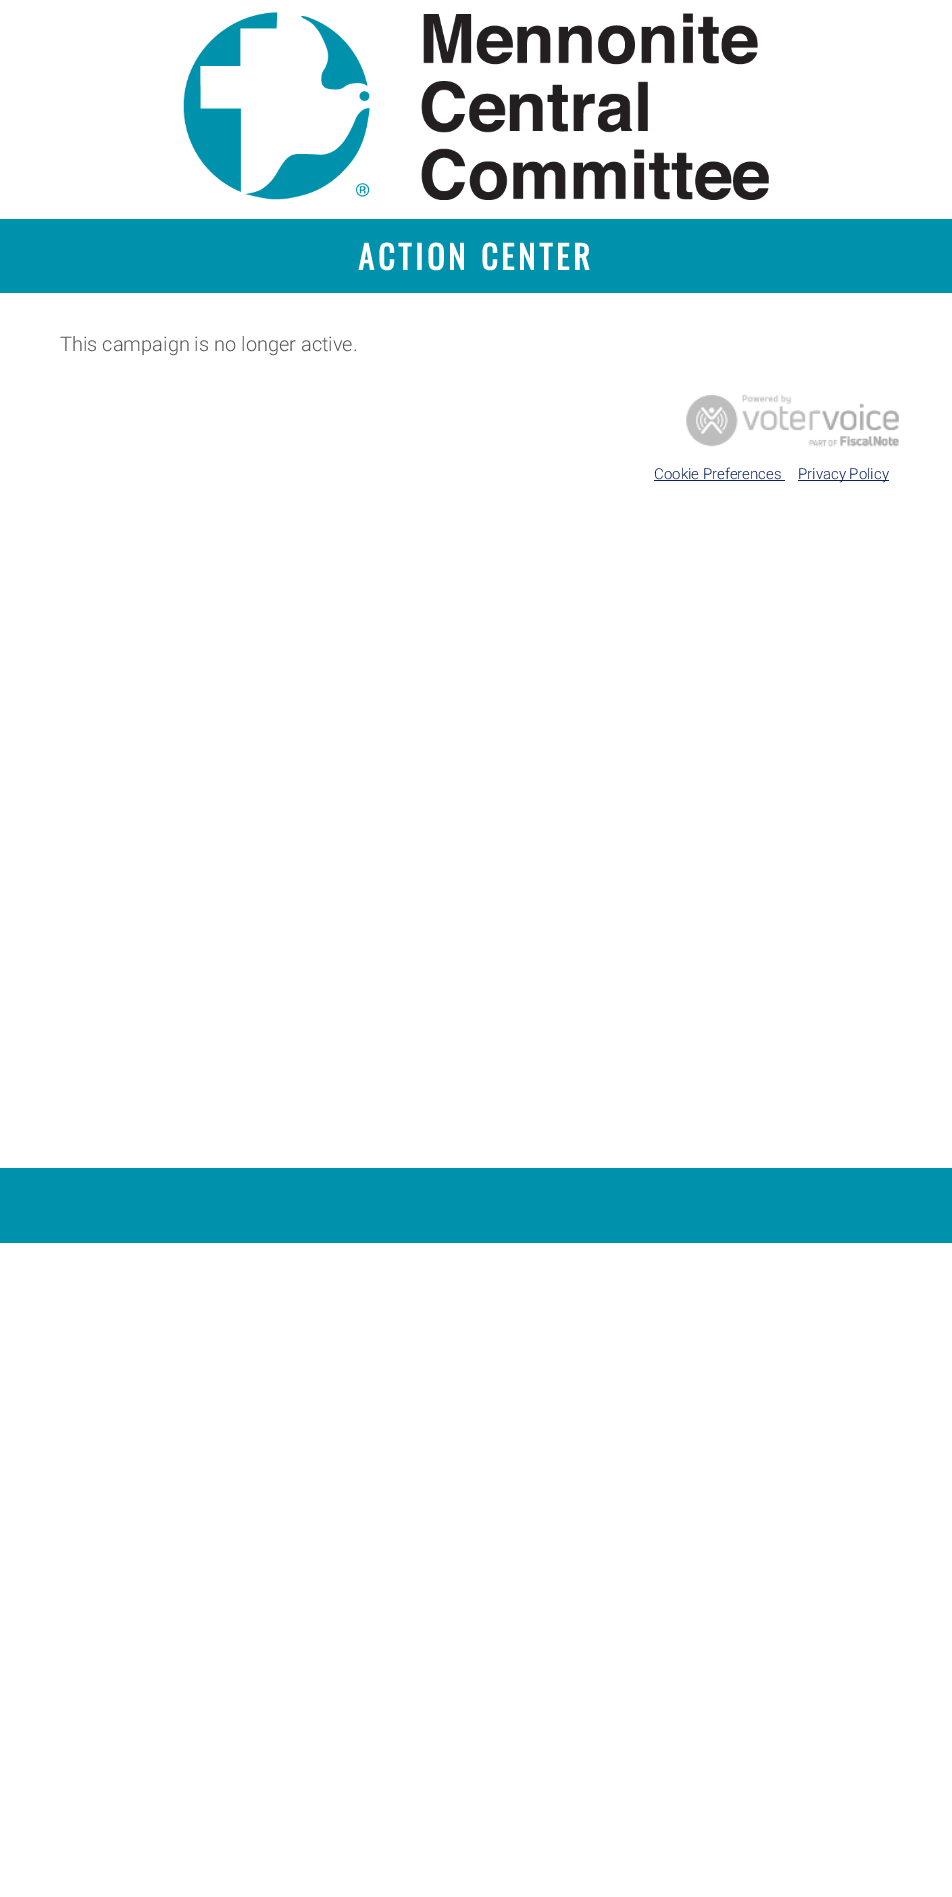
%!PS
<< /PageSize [952 1897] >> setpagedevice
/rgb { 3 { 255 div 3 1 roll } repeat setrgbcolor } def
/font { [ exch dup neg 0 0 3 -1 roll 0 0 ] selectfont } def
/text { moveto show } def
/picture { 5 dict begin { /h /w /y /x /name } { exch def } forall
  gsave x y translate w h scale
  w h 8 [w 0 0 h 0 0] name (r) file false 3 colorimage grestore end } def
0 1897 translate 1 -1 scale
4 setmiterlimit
255 255 255 rgb
0 0 952 1897 rectfill
(img_01.rgb) 183 12 586 188 picture
0 146 172 rgb
0 219 952 74 rectfill
(img_02.rgb) 686 395 213 52 picture
11 33 97 rgb
654 480 131 1 rectfill
798 480 91 1 rectfill
0 146 172 rgb
0 1168 952 75 rectfill
/Oswald-Bold 32.5 font
255 255 255 rgb
358 270 moveto 3.75 0 (ACTION CENTER) ashow
/Roboto-Light 20 font
88 88 88 rgb
(This campaign is no longer active.) 60 351 text
/Roboto-Light 15 font
11 33 97 rgb
(Cookie Preferences) 654 479 text
(Privacy Policy) 798 479 text
showpage
